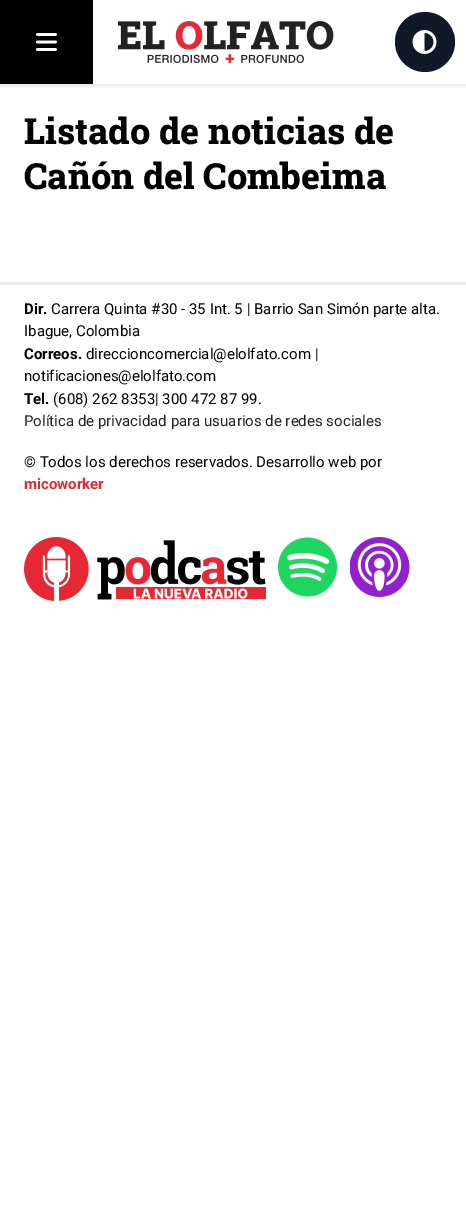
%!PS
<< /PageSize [466 1211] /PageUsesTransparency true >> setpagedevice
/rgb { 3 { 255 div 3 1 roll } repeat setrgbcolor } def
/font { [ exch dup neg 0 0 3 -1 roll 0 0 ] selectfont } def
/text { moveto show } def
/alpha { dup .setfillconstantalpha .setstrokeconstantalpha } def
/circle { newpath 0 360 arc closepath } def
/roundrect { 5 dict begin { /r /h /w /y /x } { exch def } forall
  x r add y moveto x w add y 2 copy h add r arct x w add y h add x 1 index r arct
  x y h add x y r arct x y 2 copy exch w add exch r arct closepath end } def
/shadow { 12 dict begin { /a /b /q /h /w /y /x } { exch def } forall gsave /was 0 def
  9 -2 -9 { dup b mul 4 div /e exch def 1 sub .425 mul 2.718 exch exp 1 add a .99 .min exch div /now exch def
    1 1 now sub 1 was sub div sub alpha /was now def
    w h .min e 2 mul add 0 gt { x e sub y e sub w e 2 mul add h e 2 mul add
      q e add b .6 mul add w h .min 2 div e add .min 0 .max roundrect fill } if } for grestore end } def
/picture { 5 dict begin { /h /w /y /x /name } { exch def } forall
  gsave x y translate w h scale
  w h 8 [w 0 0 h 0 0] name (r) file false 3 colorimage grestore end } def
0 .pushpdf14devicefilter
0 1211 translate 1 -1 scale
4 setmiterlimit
255 255 255 rgb
0 0 466 1211 rectfill
gsave
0 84 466 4 rectclip
0 0 0 rgb
0 2 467 84 0 2 0.1 shadow
grestore
0 0 0 rgb
0 0 93 84 rectfill
(img_01.rgb) 36 33 21 18 picture
(img_02.rgb) 117 21 217 42 picture
17 24 39 rgb
425 42 30 circle fill
(img_03.rgb) 412 30 25 24 picture
229 231 235 rgb
0 282 466 3 rectfill
(img_04.rgb) 24 537 242 64 picture
(img_05.rgb) 278 537 60 60 picture
(img_06.rgb) 350 537 60 60 picture
/RobotoSlab-ExtraBold 36 font
0 0 0 rgb
(Listado de noticias de) 24 144 text
(Cañón del Combeima) 24 189 text
/Roboto-Bold 15 font
(Dir.) 24 314 text
/Roboto-Regular 15 font
(Carrera Quinta #30 - 35 Int. 5 | Barrio San Simón parte alta.) 51 314 text
(Ibague, Colombia) 24 336 text
/Roboto-Bold 15 font
(Correos.) 24 359 text
/Roboto-Regular 15 font
(direccioncomercial@elolfato.com |) 86 359 text
(notificaciones@elolfato.com) 24 381 text
/Roboto-Bold 15 font
(Tel.) 24 404 text
/Roboto-Regular 15 font
(\(608\) 262 8353| 300 472 87 99.) 53 404 text
34 34 34 rgb
(Política de privacidad para usuarios de redes sociales) 24 426 text
0 0 0 rgb
(© Todos los derechos reservados. Desarrollo web por) 24 467 text
/Roboto-Bold 15 font
229 40 52 rgb
(micoworker) 24 489 text
.poppdf14devicefilter showpage
